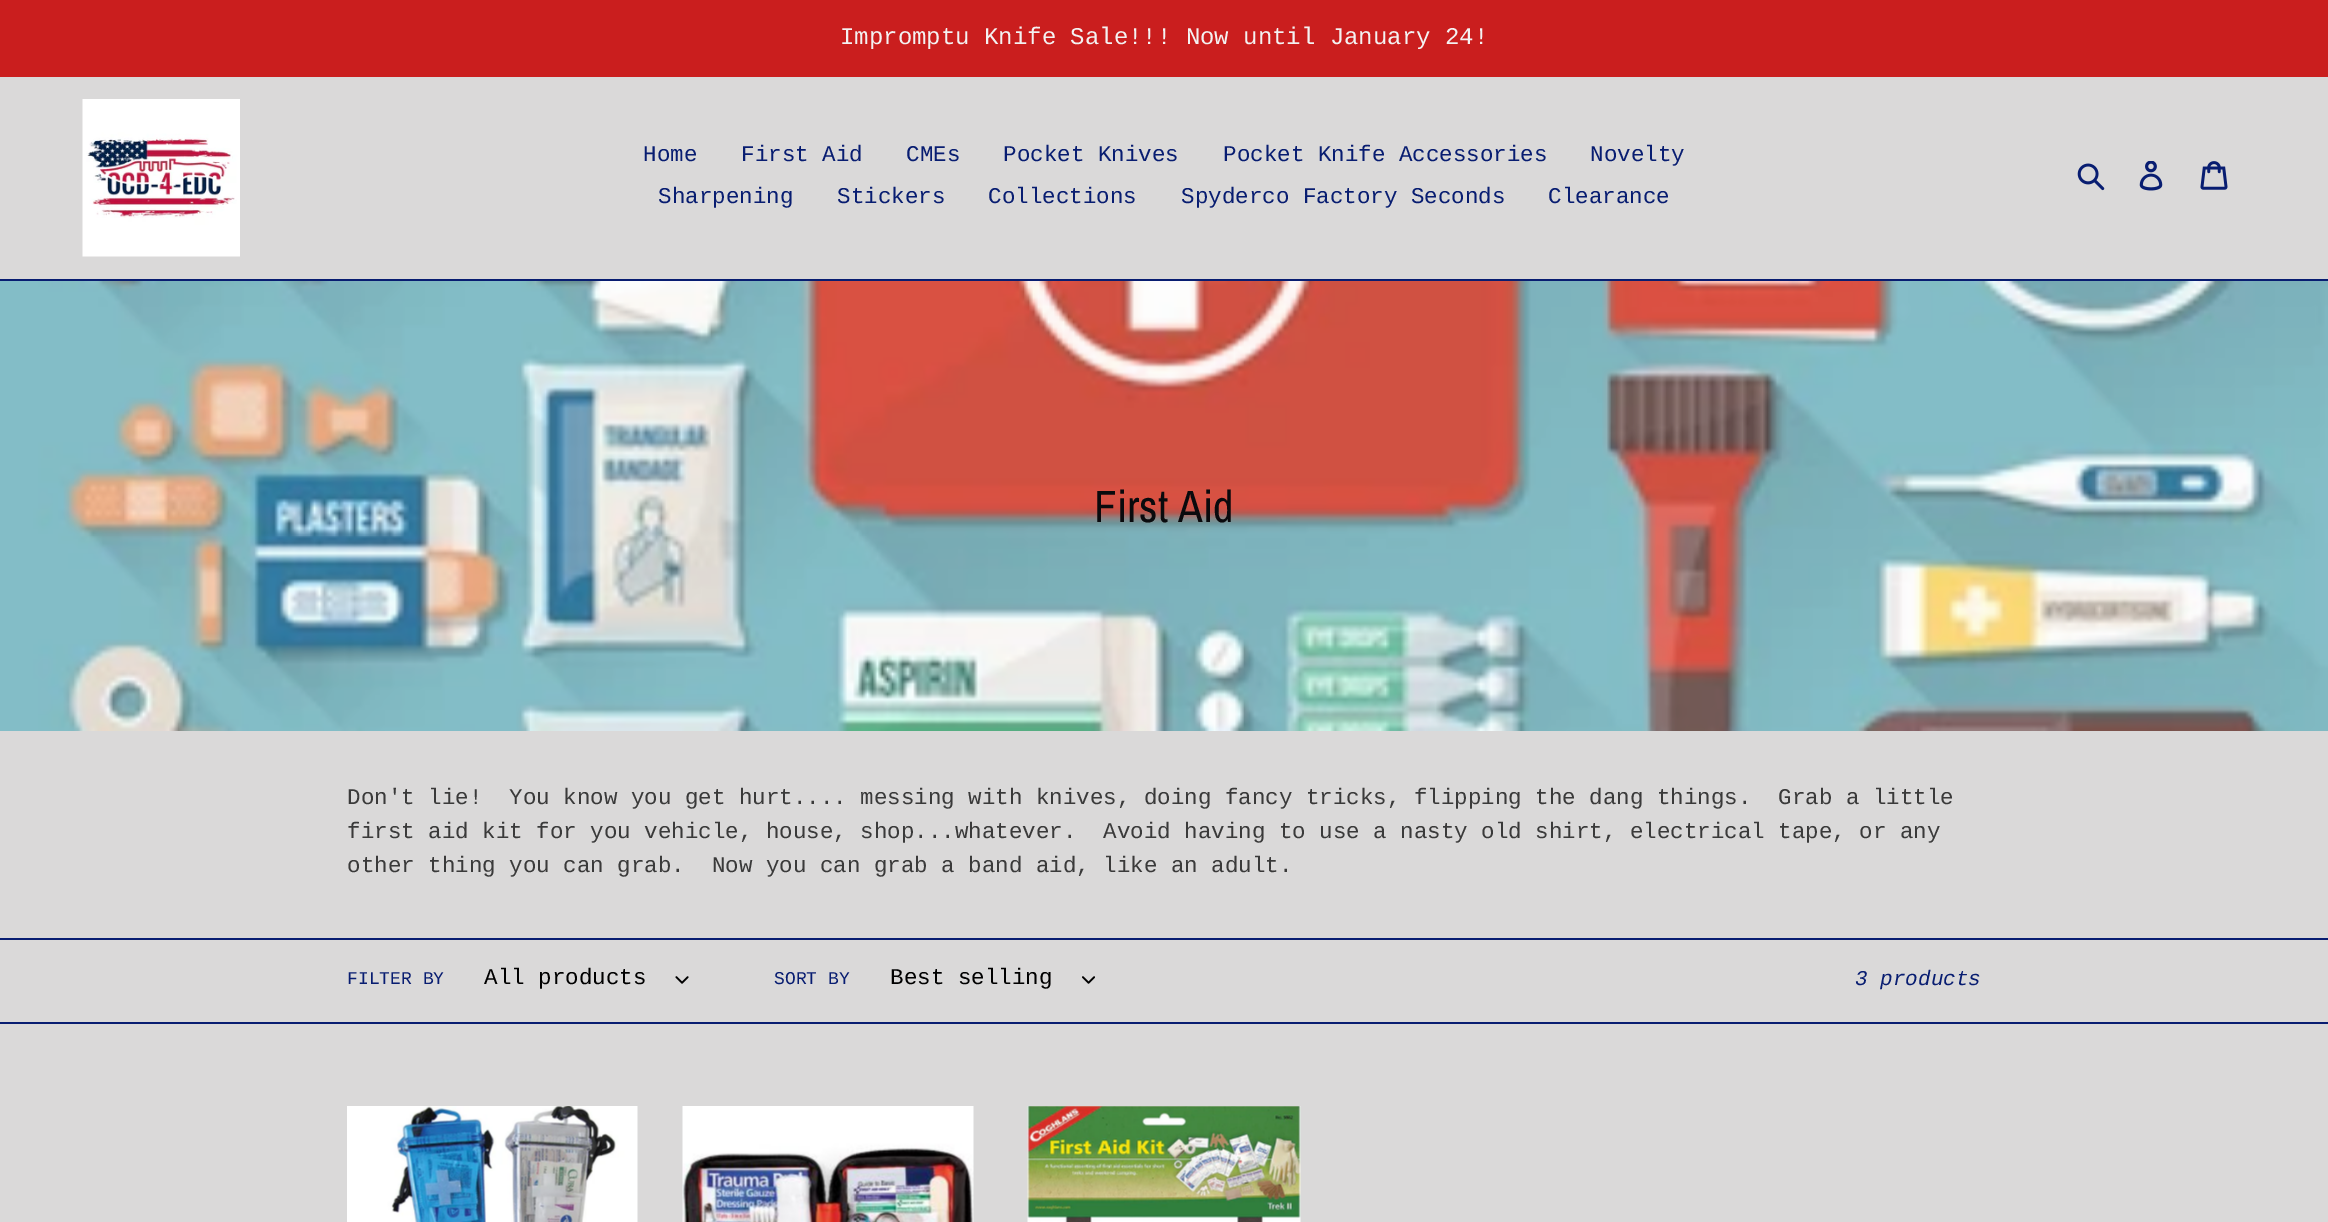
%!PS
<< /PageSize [2328 1222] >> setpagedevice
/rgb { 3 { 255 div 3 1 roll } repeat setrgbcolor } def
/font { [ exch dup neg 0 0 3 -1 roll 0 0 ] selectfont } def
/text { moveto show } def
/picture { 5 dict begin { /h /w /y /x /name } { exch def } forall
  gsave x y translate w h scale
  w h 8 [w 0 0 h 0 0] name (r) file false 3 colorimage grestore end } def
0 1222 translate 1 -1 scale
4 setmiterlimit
218 217 217 rgb
0 0 2328 1222 rectfill
202 30 30 rgb
0 0 2328 77 rectfill
8 29 113 rgb
0 279 2328 2 rectfill
(img_01.rgb) 82 99 158 158 picture
(img_02.rgb) 2077 163 28 28 picture
(img_03.rgb) 2139 161 24 30 picture
(img_04.rgb) 2200 161 28 29 picture
(img_05.rgb) 0 281 2328 450 picture
0 938 2328 2 rectfill
0 1022 2328 2 rectfill
(img_06.rgb) 675 976 14 8 picture
(img_07.rgb) 1082 976 13 8 picture
(img_08.rgb) 347 1106 291 116 picture
(img_09.rgb) 682 1106 292 116 picture
(img_10.rgb) 1027 1106 274 116 picture
/LiberationMono-Regular 24 font
244 242 242 rgb
(Impromptu Knife Sale!!! Now until January 24!) 840 44 text
/LiberationMono-Regular 22.5 font
8 29 113 rgb
(Home) 643 161 text
(First Aid) 741 161 text
(CMEs) 906 161 text
(Pocket Knives) 1003 161 text
(Pocket Knife Accessories) 1223 161 text
(Novelty) 1590 161 text
(Sharpening) 658 203 text
(Stickers) 837 203 text
(Collections) 988 203 text
(Spyderco Factory Seconds) 1181 203 text
(Clearance) 1548 203 text
/ArchivoNarrow-Regular 45 font
10 10 13 rgb
(First Aid) 1094 522 text
/LiberationMono-Regular 22.5 font
58 58 58 rgb
(Don't lie!  You know you get hurt.... messing with knives, doing fancy tricks, flipping the dang things.  Grab a little) 347 804 text
(first aid kit for you vehicle, house, shop...whatever.  Avoid having to use a nasty old shirt, electrical tape, or any) 347 838 text
(other thing you can grab.  Now you can grab a band aid, like an adult.) 347 872 text
/LiberationMono-Regular 18 font
8 29 113 rgb
(FILTER BY) 347 984 text
/LiberationMono-Regular 22.5 font
0 0 0 rgb
(All products) 484 984 text
/LiberationMono-Regular 18 font
8 29 113 rgb
(SORT BY) 774 984 text
/LiberationMono-Regular 22.5 font
0 0 0 rgb
(Best selling) 890 984 text
/LiberationMono-Italic 21 font
8 29 113 rgb
(3 products) 1855 985 text
showpage
